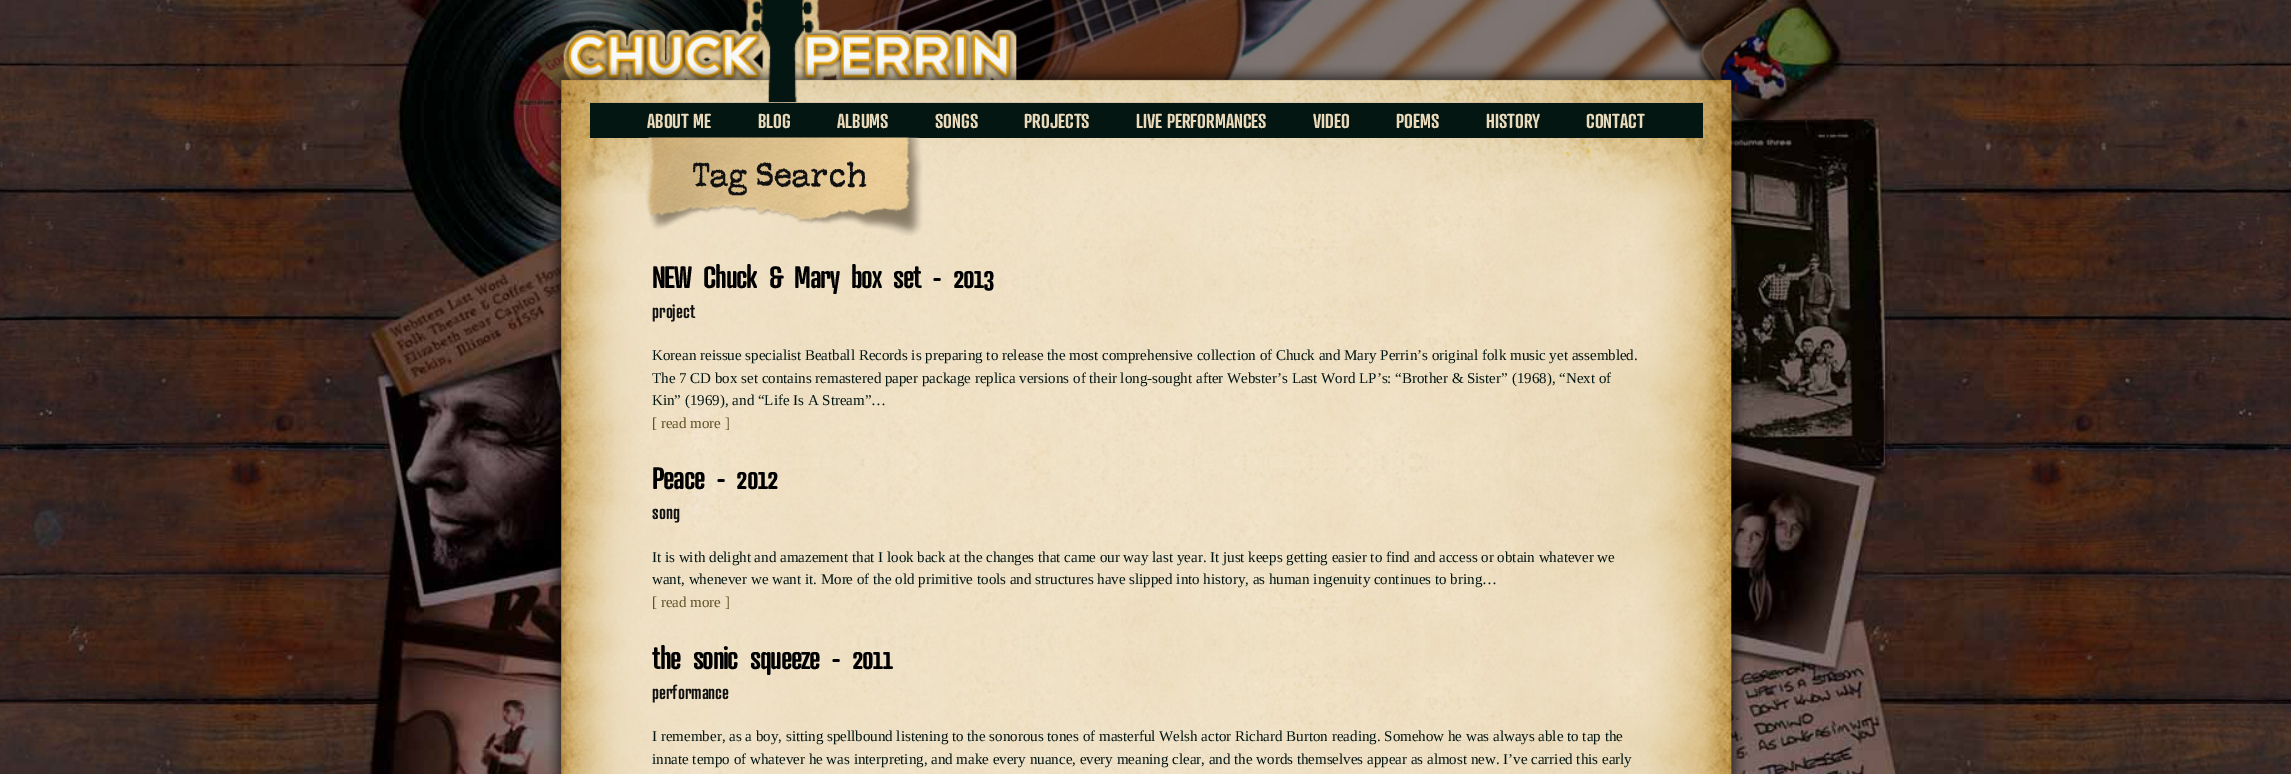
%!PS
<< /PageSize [2291 774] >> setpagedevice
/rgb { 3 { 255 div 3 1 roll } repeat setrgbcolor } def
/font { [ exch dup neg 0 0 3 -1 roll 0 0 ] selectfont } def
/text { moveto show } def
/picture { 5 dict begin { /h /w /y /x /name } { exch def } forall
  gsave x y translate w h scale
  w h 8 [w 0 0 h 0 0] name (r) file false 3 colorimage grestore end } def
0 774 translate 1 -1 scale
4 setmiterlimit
255 255 255 rgb
0 0 2291 774 rectfill
(img_01.rgb) 0 0 2291 774 picture
(img_02.rgb) 283 0 1726 774 picture
(img_03.rgb) 546 0 1201 103 picture
(img_04.rgb) 548 102 1197 672 picture
(img_05.rgb) 561 102 1171 672 picture
(img_06.rgb) 561 102 1171 92 picture
4 22 18 rgb
590 103 1113 35 rectfill
(img_07.rgb) 645 137 278 99 picture
/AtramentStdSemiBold-SemiBold 19.5 font
232 218 187 rgb
(ABOUT ME) 647 128 text
(BLOG) 758 128 text
(ALBUMS) 837 128 text
(SONGS) 935 128 text
(PROJECTS) 1024 128 text
(LIVE PERFORMANCES) 1136 128 text
(VIDEO) 1313 128 text
(POEMS) 1396 128 text
(HISTORY) 1486 128 text
(CONTACT) 1586 128 text
/Sunflower-Medium 33 font
17 17 17 rgb
691 186 moveto -2 0 32 -1.75 0 (Tag Search) awidthshow
/AtramentStdSemiBold-SemiBold 30 font
0 0 0 rgb
652 288 moveto 7.25 0 32 -1.3 0 (NEW Chuck & Mary box set - 2013) awidthshow
/AtramentStdSemiBold-SemiBold 18 font
17 17 17 rgb
(project) 652 318 text
/LiberationSerif-Regular 15 font
4 22 18 rgb
(Korean reissue specialist Beatball Records is preparing to release the most comprehensive collection of Chuck and Mary Perrin’s original folk music yet assembled.) 652 360 text
(The 7 CD box set contains remastered paper package replica versions of their long-sought after Webster’s Last Word LP’s: “Brother & Sister” \(1968\), “Next of) 652 383 text
(Kin” \(1969\), and “Life Is A Stream”…) 652 405 text
96 82 37 rgb
([ read more ]) 652 428 text
/AtramentStdSemiBold-SemiBold 30 font
0 0 0 rgb
652 489 moveto 7.25 0 32 -1.3 0 (Peace - 2012) awidthshow
/AtramentStdSemiBold-SemiBold 18 font
17 17 17 rgb
(song) 652 519 text
/LiberationSerif-Regular 15 font
4 22 18 rgb
(It is with delight and amazement that I look back at the changes that came our way last year. It just keeps getting easier to find and access or obtain whatever we) 652 562 text
(want, whenever we want it. More of the old primitive tools and structures have slipped into history, as human ingenuity continues to bring…) 652 584 text
96 82 37 rgb
([ read more ]) 652 607 text
/AtramentStdSemiBold-SemiBold 30 font
0 0 0 rgb
652 669 moveto 7.25 0 32 -1.3 0 (the sonic squeeze - 2011) awidthshow
/AtramentStdSemiBold-SemiBold 18 font
17 17 17 rgb
(performance) 652 699 text
/LiberationSerif-Regular 15 font
4 22 18 rgb
(I remember, as a boy, sitting spellbound listening to the sonorous tones of masterful Welsh actor Richard Burton reading. Somehow he was always able to tap the) 652 741 text
(innate tempo of whatever he was interpreting, and make every nuance, every meaning clear, and the words themselves appear as almost new. I’ve carried this early) 652 764 text
showpage
